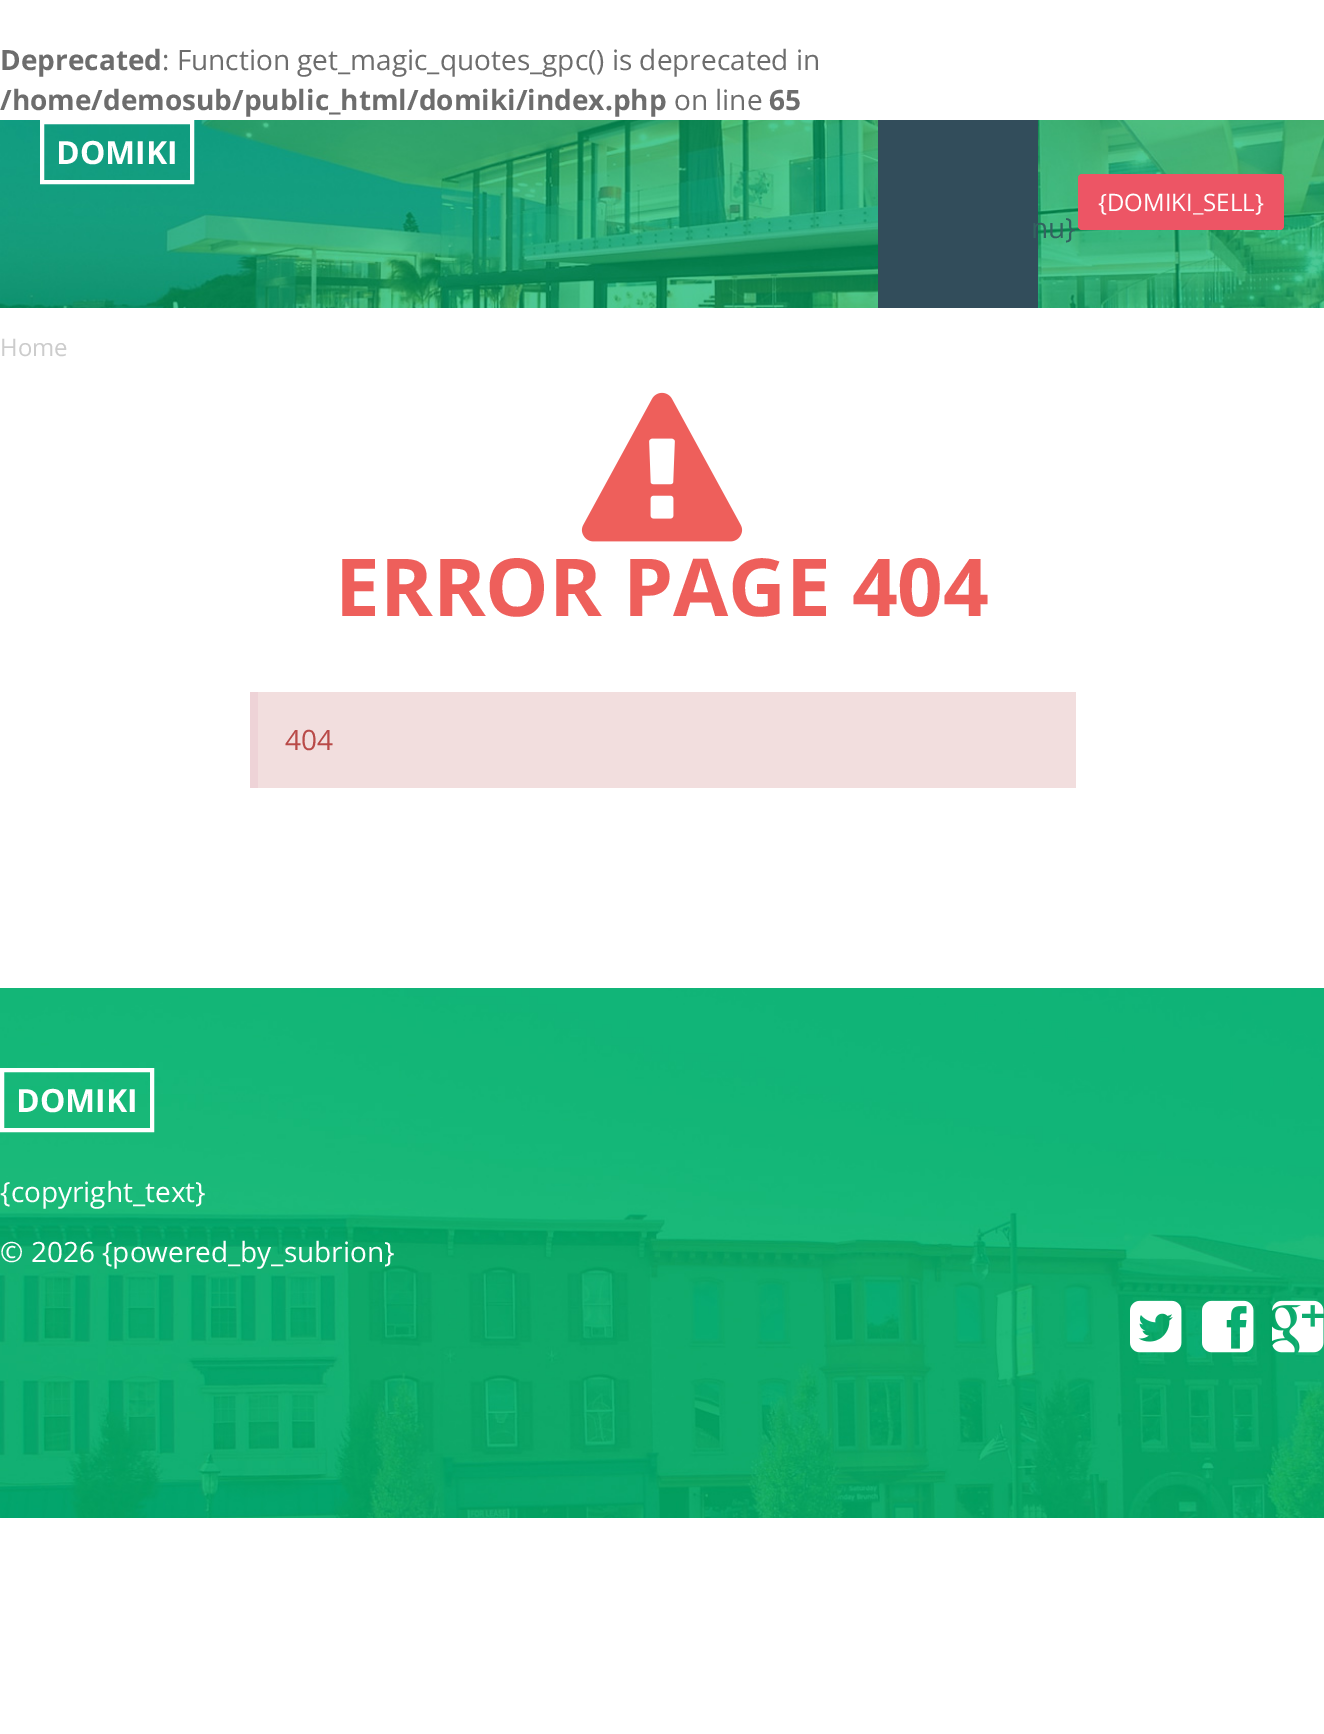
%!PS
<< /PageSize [1324 1734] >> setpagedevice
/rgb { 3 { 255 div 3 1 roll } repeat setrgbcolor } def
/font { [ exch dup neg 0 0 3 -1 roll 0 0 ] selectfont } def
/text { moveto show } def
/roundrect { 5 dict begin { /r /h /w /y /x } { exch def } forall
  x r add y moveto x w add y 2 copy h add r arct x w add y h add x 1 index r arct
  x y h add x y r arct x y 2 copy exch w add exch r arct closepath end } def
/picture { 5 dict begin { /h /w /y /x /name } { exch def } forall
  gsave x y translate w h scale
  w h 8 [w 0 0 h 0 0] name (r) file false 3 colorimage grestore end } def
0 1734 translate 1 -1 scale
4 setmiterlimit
255 255 255 rgb
0 0 1324 1734 rectfill
(img_01.rgb) 0 120 1324 188 picture
4 setlinewidth
42 122 150 60 rectstroke
237 85 101 rgb
1078 174 206 56 4 roundrect fill
50 77 91 rgb
878 120 160 188 rectfill
(img_02.rgb) 581 392 162 150 picture
242 222 222 rgb
258 692 818 96 rectfill
238 211 215 rgb
250 692 8 96 rectfill
(img_03.rgb) 0 988 1324 530 picture
255 255 255 rgb
2 1070 150 60 rectstroke
(img_04.rgb) 1130 1300 52 53 picture
(img_05.rgb) 1202 1300 52 53 picture
(img_06.rgb) 1272 1300 52 53 picture
/OpenSans-Bold 28 font
109 109 109 rgb
(Deprecated) 0 70 text
/OpenSans-Regular 28 font
(: Function get_magic_quotes_gpc\(\) is deprecated in) 162 70 text
/OpenSans-Bold 28 font
(/home/demosub/public_html/domiki/index.php) 0 110 text
/OpenSans-Regular 28 font
(on line) 674 110 text
/OpenSans-Bold 28 font
(65) 769 110 text
/OpenSans-Bold 32 font
255 255 255 rgb
(DOMIKI) 56 164 text
/OpenSans-Regular 24 font
({DOMIKI_SELL}) 1098 211 text
/OpenSans-Regular 28 font
51 97 96 rgb
(nu}) 1031 238 text
/OpenSans-Regular 24 font
204 204 204 rgb
(Home) 0 356 text
/OpenSans-Bold 80 font
238 95 91 rgb
(ERROR PAGE 404) 335 616 text
/OpenSans-Regular 28 font
185 74 72 rgb
(404) 285 750 text
/OpenSans-Bold 32 font
255 255 255 rgb
(DOMIKI) 16 1112 text
/OpenSans-Regular 28 font
({copyright_text}) 0 1202 text
(© 2026 {powered_by_subrion}) 0 1262 text
showpage
